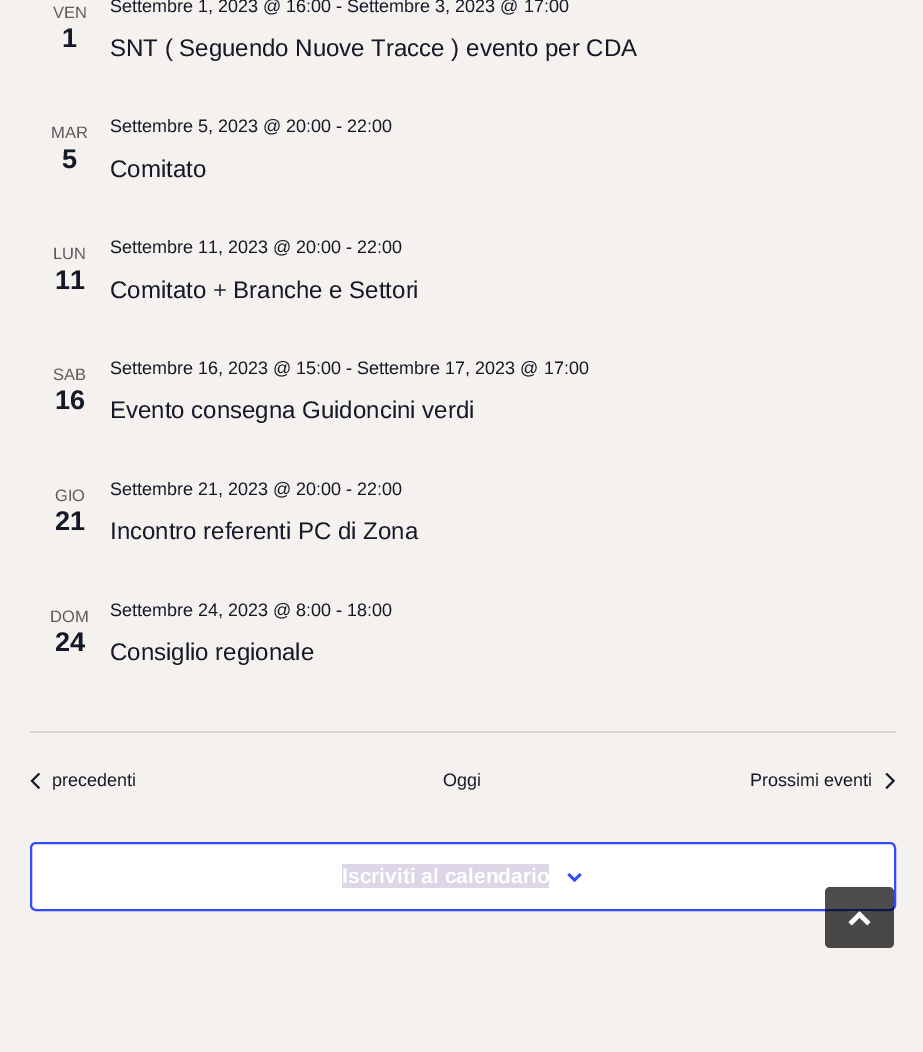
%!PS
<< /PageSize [923 1052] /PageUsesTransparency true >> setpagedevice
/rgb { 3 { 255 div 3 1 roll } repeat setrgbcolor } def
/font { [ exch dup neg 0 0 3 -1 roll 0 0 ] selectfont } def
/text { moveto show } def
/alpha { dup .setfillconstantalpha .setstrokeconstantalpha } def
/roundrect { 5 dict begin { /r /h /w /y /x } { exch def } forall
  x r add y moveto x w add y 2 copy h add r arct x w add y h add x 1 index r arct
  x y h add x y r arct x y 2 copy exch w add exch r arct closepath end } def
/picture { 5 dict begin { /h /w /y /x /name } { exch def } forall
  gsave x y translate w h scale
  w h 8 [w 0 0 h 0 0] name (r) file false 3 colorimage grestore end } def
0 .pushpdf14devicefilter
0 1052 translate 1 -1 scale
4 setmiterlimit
245 241 238 rgb
0 0 923 1052 rectfill
213 213 213 rgb
30 731 866 2 rectfill
(img_01.rgb) 30 773 11 16 picture
(img_02.rgb) 885 773 11 16 picture
255 255 255 rgb
31 843 864 67 5 roundrect gsave fill grestore
51 74 255 rgb
2 setlinewidth
stroke
220 214 230 rgb
342 864 207 24 rectfill
(img_03.rgb) 567 873 15 9 picture
0.7 alpha
0 0 0 rgb
825 887 69 61 5 roundrect fill
1 alpha
(img_04.rgb) 848 911 23 15 picture
/LiberationSans-Regular 16.5 font
93 93 93 rgb
(VEN) 53 18 text
/LiberationSans-Bold 27 font
20 24 39 rgb
(1) 62 47 text
/LiberationSans-Regular 18 font
(Settembre 1, 2023 @ 16:00 - Settembre 3, 2023 @ 17:00) 110 12 text
/LiberationSans-Regular 24 font
(SNT \( Seguendo Nuove Tracce \) evento per CDA) 110 56 text
/LiberationSans-Regular 16.5 font
93 93 93 rgb
(MAR) 51 138 text
/LiberationSans-Bold 27 font
20 24 39 rgb
(5) 62 168 text
/LiberationSans-Regular 18 font
(Settembre 5, 2023 @ 20:00 - 22:00) 110 132 text
/LiberationSans-Regular 24 font
(Comitato) 110 177 text
/LiberationSans-Regular 16.5 font
93 93 93 rgb
(LUN) 53 259 text
/LiberationSans-Bold 27 font
20 24 39 rgb
(11) 55 289 text
/LiberationSans-Regular 18 font
(Settembre 11, 2023 @ 20:00 - 22:00) 110 253 text
/LiberationSans-Regular 24 font
(Comitato + Branche e Settori) 110 298 text
/LiberationSans-Regular 16.5 font
93 93 93 rgb
(SAB) 53 380 text
/LiberationSans-Bold 27 font
20 24 39 rgb
(16) 55 409 text
/LiberationSans-Regular 18 font
(Settembre 16, 2023 @ 15:00 - Settembre 17, 2023 @ 17:00) 110 374 text
/LiberationSans-Regular 24 font
(Evento consegna Guidoncini verdi) 110 418 text
/LiberationSans-Regular 16.5 font
93 93 93 rgb
(GIO) 55 501 text
/LiberationSans-Bold 27 font
20 24 39 rgb
(21) 55 530 text
/LiberationSans-Regular 18 font
(Settembre 21, 2023 @ 20:00 - 22:00) 110 495 text
/LiberationSans-Regular 24 font
(Incontro referenti PC di Zona) 110 539 text
/LiberationSans-Regular 16.5 font
93 93 93 rgb
(DOM) 50 622 text
/LiberationSans-Bold 27 font
20 24 39 rgb
(24) 55 651 text
/LiberationSans-Regular 18 font
(Settembre 24, 2023 @ 8:00 - 18:00) 110 616 text
/LiberationSans-Regular 24 font
(Consiglio regionale) 110 660 text
/LiberationSans-Regular 18 font
(precedenti) 52 786 text
(Oggi) 443 786 text
(Prossimi eventi) 750 786 text
/LiberationSans-Bold 21 font
255 255 255 rgb
(Iscriviti al calendario) 342 883 text
.poppdf14devicefilter showpage
